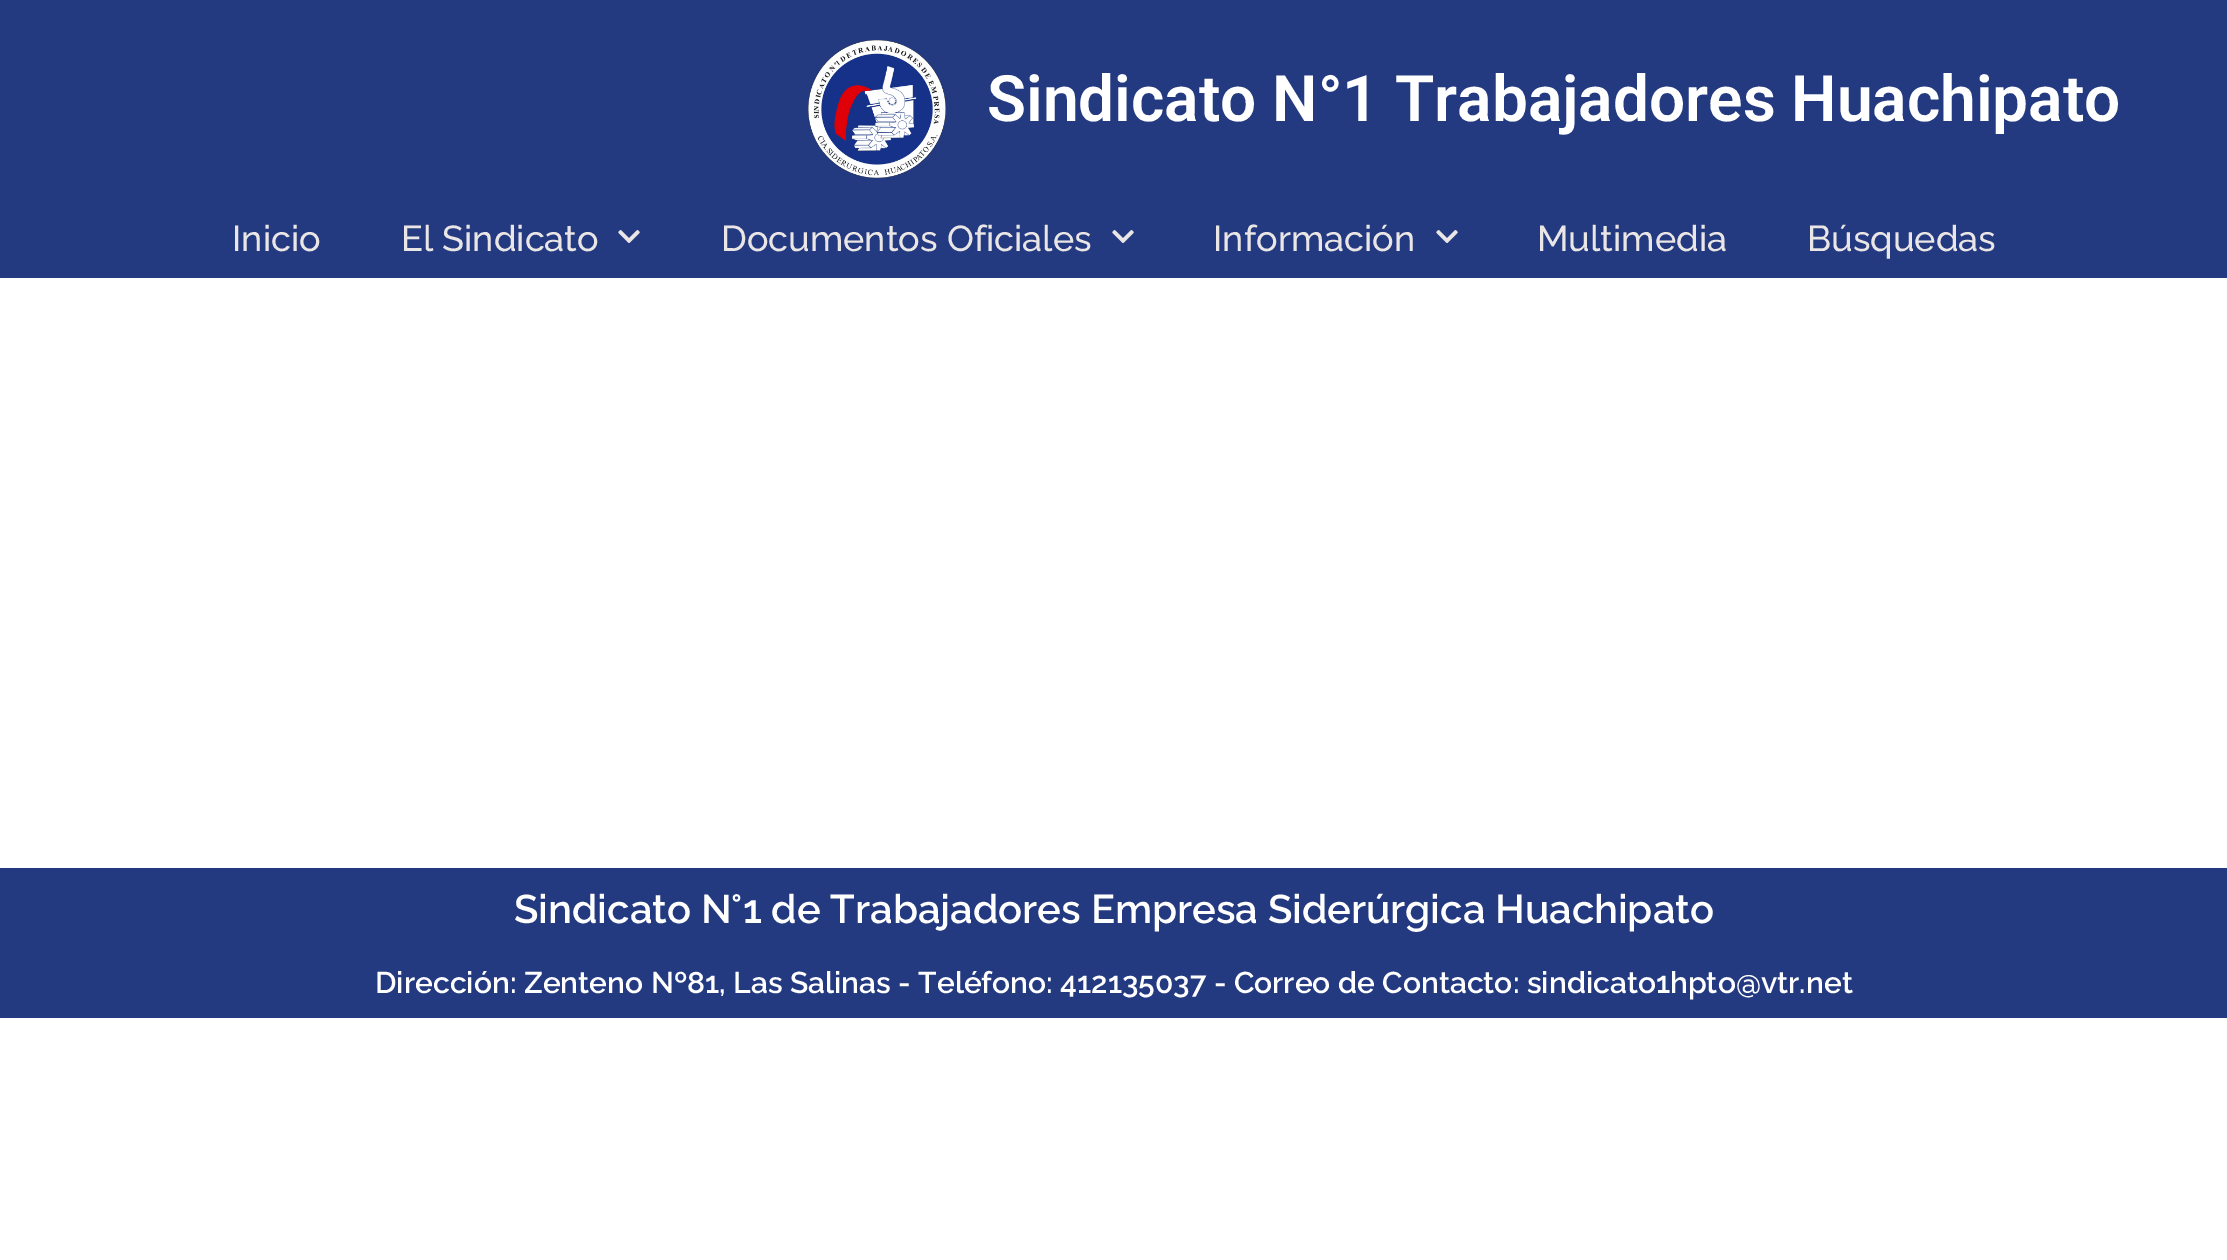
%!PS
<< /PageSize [2227 1260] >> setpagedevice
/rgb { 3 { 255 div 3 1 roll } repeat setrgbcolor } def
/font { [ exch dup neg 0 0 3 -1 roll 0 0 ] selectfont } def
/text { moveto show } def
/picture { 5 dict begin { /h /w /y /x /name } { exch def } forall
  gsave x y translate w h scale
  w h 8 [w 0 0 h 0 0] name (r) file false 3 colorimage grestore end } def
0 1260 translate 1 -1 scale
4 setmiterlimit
255 255 255 rgb
0 0 2227 1260 rectfill
35 57 128 rgb
0 0 2227 278 rectfill
(img_01.rgb) 808 40 138 138 picture
(img_02.rgb) 618 230 22 13 picture
(img_02.rgb) 1112 230 22 13 picture
(img_02.rgb) 1436 230 22 13 picture
0 868 2227 150 rectfill
/Roboto-SemiBold 64 font
255 255 255 rgb
(Sindicato N°1 Trabajadores Huachipato) 987 121 text
/Raleway-Medium 36 font
234 230 230 rgb
(Inicio) 232 251 text
(El Sindicato) 401 251 text
(Documentos Oficiales) 721 251 text
(Información) 1213 251 text
(Multimedia) 1537 251 text
(Búsquedas) 1807 251 text
/Raleway-SemiBold 40 font
255 255 255 rgb
(Sindicato N°1 de Trabajadores Empresa Siderúrgica Huachipato) 514 923 text
/Raleway-SemiBold 30 font
(Dirección: Zenteno Nº81, Las Salinas - Teléfono: 412135037 - Correo de Contacto: sindicato1hpto@vtr.net) 375 993 text
showpage
